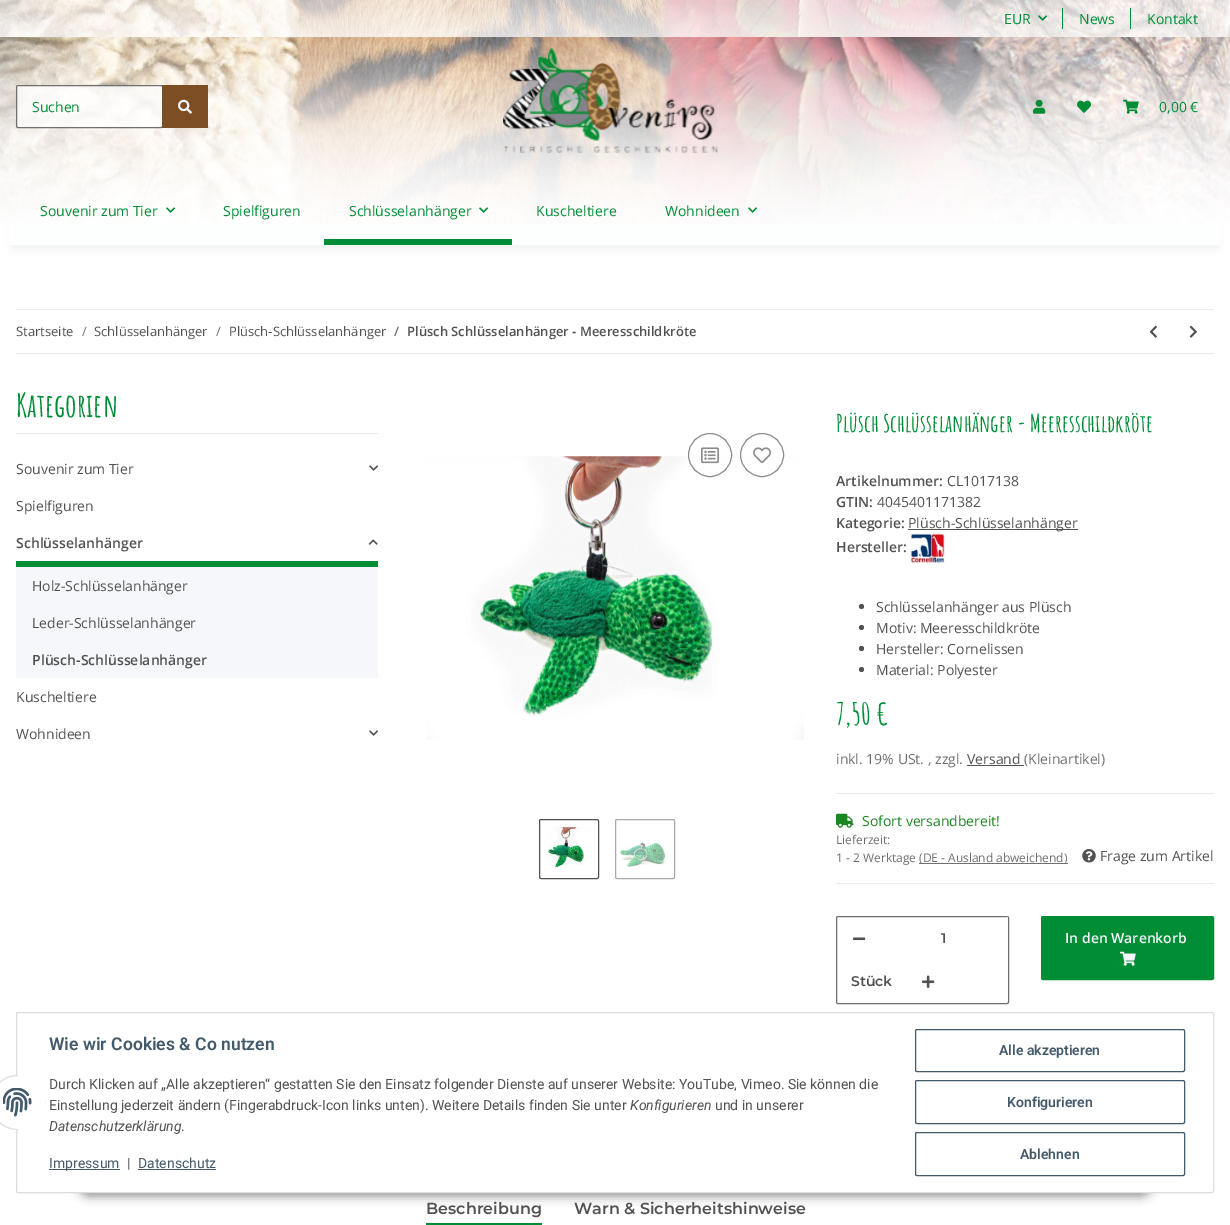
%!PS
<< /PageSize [1230 1225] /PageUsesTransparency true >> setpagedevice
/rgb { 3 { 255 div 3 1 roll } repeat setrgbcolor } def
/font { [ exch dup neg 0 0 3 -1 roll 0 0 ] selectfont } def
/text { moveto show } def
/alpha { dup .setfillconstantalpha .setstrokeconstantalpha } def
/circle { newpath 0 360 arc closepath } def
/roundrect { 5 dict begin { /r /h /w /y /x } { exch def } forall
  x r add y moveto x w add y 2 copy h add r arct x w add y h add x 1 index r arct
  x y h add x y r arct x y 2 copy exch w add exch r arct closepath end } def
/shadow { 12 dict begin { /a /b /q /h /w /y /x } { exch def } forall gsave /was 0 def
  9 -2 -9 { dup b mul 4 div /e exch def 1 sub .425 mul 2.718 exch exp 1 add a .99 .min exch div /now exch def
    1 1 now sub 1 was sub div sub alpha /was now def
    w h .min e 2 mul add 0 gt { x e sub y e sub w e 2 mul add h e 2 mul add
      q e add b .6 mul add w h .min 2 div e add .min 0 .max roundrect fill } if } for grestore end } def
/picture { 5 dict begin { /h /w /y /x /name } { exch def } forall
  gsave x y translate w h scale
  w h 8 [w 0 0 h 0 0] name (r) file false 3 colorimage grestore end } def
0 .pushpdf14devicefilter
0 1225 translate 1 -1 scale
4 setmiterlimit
255 255 255 rgb
0 0 1230 1225 rectfill
0 0 0 rgb
12 28 1206 221 0 4.5 0.06 shadow
253 254 254 rgb
9 37 1212 208 rectfill
(img_01.rgb) 0 37 1230 187 picture
(img_02.rgb) 0 0 1230 37 picture
(img_03.rgb) 1038 15 9 6 picture
0 141 54 rgb
1062 8 1 21 rectfill
1130 8 1 21 rectfill
0.8 alpha
255 255 255 rgb
16.5 85.5 146 42 1.5 roundrect fill
1 alpha
112 112 112 rgb
16.5 85.5 146 42 1.5 roundrect stroke
125 78 36 rgb
162 85 46 43 rectfill
(img_04.rgb) 178 99 14 15 picture
(img_05.rgb) 503 47 215 106 picture
(img_06.rgb) 1033 99 13 15 picture
(img_07.rgb) 1077 100 14 13 picture
(img_08.rgb) 1123 99 16 15 picture
(img_09.rgb) 166 207 9 6 picture
(img_10.rgb) 479 207 9 6 picture
0 141 54 rgb
324 239 188 6 rectfill
(img_11.rgb) 748 207 9 6 picture
235 235 235 rgb
16 309 1198 1 rectfill
16 353 1198 1 rectfill
(img_12.rgb) 1149 325 8 13 picture
(img_13.rgb) 1189 325 8 13 picture
16 433 362 1 rectfill
(img_14.rgb) 369 465 9 6 picture
0 141 54 rgb
16 561 362 6 rectfill
(img_15.rgb) 368 539 10 6 picture
245 247 250 rgb
16 567 362 111 rectfill
(img_14.rgb) 369 730 9 6 picture
(img_18.rgb) 426 456 378 284 picture
141 141 141 rgb
710 455 21.5 circle stroke
(img_16.rgb) 701 447 18 17 picture
762 455 21.5 circle stroke
(img_17.rgb) 753 447 18 17 picture
82 82 82 rgb
539.5 819.5 59 59 1.5 roundrect stroke
(img_19.rgb) 547 827 51 44 picture
169 169 169 rgb
615.5 819.5 59 59 1.5 roundrect stroke
(img_20.rgb) 619 842 47 25 picture
82 82 82 rgb
908 529 170 1 rectfill
(img_21.rgb) 910 533 35 31 picture
861.5 606.5 2.5 circle fill
861.5 627.5 2.5 circle fill
861.5 648.5 2.5 circle fill
861.5 669.5 2.5 circle fill
967 765 57 1 rectfill
235 235 235 rgb
836 793 378 1 rectfill
836 883 378 1 rectfill
(img_22.rgb) 836 813 18 15 picture
112 112 112 rgb
919 863 149 1 rectfill
(img_23.rgb) 1082 849 14 14 picture
836.5 916.5 172 87 1.5 roundrect stroke
(img_24.rgb) 853 937 13 4 picture
255 255 255 rgb
1007 917 1 1 rectfill
(img_25.rgb) 922 975 13 13 picture
0 141 54 rgb
1041.5 916.5 172 63 1.5 roundrect gsave fill grestore
stroke
(img_26.rgb) 1120 951 16 15 picture
426 1223 116 2 rectfill
0 0 0 rgb
77 1164 1076 32 16 5 0.45 shadow
255 255 255 rgb
16.5 1012.5 1197 180 1.5 roundrect gsave fill grestore
221 221 221 rgb
stroke
255 255 255 rgb
17.5 1102.5 27 circle gsave fill grestore
221 221 221 rgb
stroke
255 255 255 rgb
18 1075 27 55 rectfill
(img_27.rgb) 3 1088 29 29 picture
67 90 107 rgb
49 1169 71 1 rectfill
138 1169 78 1 rectfill
915.5 1029.5 269 42 1.5 roundrect stroke
915.5 1080.5 269 43 1.5 roundrect stroke
915.5 1132.5 269 43 1.5 roundrect stroke
/OpenSans-Regular 14 font
0 141 54 rgb
(EUR) 1004 24 text
(News) 1079 24 text
(Kontakt) 1147 24 text
(Suchen) 32 112 text
(0,00 €) 1159 112 text
(Souvenir zum Tier) 40 216 text
(Spielfiguren) 223 216 text
(Schlüsselanhänger) 349 216 text
(Kuscheltiere) 536 216 text
(Wohnideen) 665 216 text
/OpenSans-Regular 13 font
82 82 82 rgb
(Startseite) 16 336 text
112 112 112 rgb
(/) 82 336 text
82 82 82 rgb
(Schlüsselanhänger) 94 336 text
112 112 112 rgb
(/) 216 336 text
82 82 82 rgb
(Plüsch-Schlüsselanhänger) 229 336 text
/OpenSans-SemiBold 13 font
112 112 112 rgb
(/) 394 336 text
82 82 82 rgb
(Plüsch Schlüsselanhänger - Meeresschildkröte) 407 336 text
/AmaticSC-Bold 32 font
0 141 54 rgb
(Kategorien) 16 417 text
/OpenSans-Regular 14 font
82 82 82 rgb
(Souvenir zum Tier) 16 474 text
(Spielfiguren) 16 511 text
/OpenSans-SemiBold 14 font
(Schlüsselanhänger) 16 548 text
/OpenSans-Regular 14 font
(Holz-Schlüsselanhänger) 32 591 text
(Leder-Schlüsselanhänger) 32 628 text
/OpenSans-SemiBold 14 font
(Plüsch-Schlüsselanhänger) 32 665 text
/OpenSans-Regular 14 font
(Kuscheltiere) 16 702 text
(Wohnideen) 16 739 text
/AmaticSC-Bold 24 font
0 141 54 rgb
(Plüsch Schlüsselanhänger - Meeresschildkröte) 836 432 text
/OpenSans-SemiBold 14 font
82 82 82 rgb
(Artikelnummer:) 836 486 text
/OpenSans-Regular 14 font
(CL1017138) 947 486 text
/OpenSans-SemiBold 14 font
(GTIN:) 836 507 text
/OpenSans-Regular 14 font
(4045401171382) 877 507 text
/OpenSans-SemiBold 14 font
(Kategorie:) 836 528 text
/OpenSans-Regular 14 font
(Plüsch-Schlüsselanhänger) 908 528 text
/OpenSans-SemiBold 14 font
(Hersteller:) 836 552 text
/OpenSans-Regular 14 font
(Schlüsselanhänger aus Plüsch) 876 612 text
(Motiv: Meeresschildkröte) 876 633 text
(Hersteller: Cornelissen) 876 654 text
(Material: Polyester) 876 675 text
/AmaticSC-Bold 30 font
0 141 54 rgb
(7,50 €) 836 725 text
/OpenSans-Regular 14 font
112 112 112 rgb
(inkl. 19% USt. , zzgl.) 836 764 text
82 82 82 rgb
(Versand) 967 764 text
112 112 112 rgb
(\(Kleinartikel\)) 1024 764 text
28 135 30 rgb
(Sofort versandbereit!) 862 826 text
/OpenSans-Regular 12 font
112 112 112 rgb
(Lieferzeit:) 836 844 text
(1 - 2 Werktage) 836 862 text
(\(DE - Ausland abweichend\)) 919 862 text
/OpenSans-Regular 14 font
82 82 82 rgb
(Frage zum Artikel) 1100 861 text
/Montserrat-SemiBold 14 font
(1) 941 943 text
(Stück) 851 986 text
/OpenSans-SemiBold 14 font
245 247 250 rgb
(In den Warenkorb) 1065 943 text
/Montserrat-SemiBold 16 font
82 82 82 rgb
(Beschreibung) 426 1214 text
(Warn & Sicherheitshinweise) 574 1214 text
/Roboto-SemiBold 17.6 font
67 90 107 rgb
(Wie wir Cookies & Co nutzen) 49 1050 text
/Roboto-Regular 14 font
82 82 82 rgb
(Durch Klicken auf „Alle akzeptieren“ gestatten Sie den Einsatz folgender Dienste auf unserer Website: YouTube, Vimeo. Sie können die) 49 1089 text
(Einstellung jederzeit ändern \(Fingerabdruck-Icon links unten\). Weitere Details finden Sie unter) 49 1110 text
/Roboto-Italic 14 font
(Konfigurieren) 630 1110 text
/Roboto-Regular 14 font
(und in unserer) 715 1110 text
/Roboto-Italic 14 font
(Datenschutzerklärung) 49 1131 text
/Roboto-Regular 14 font
(.) 181 1131 text
67 90 107 rgb
(Impressum) 49 1168 text
82 82 82 rgb
(|) 127 1168 text
67 90 107 rgb
(Datenschutz) 138 1168 text
/Roboto-SemiBold 14 font
(Alle akzeptieren) 999 1055 text
(Konfigurieren) 1007 1107 text
(Ablehnen) 1020 1159 text
.poppdf14devicefilter showpage
